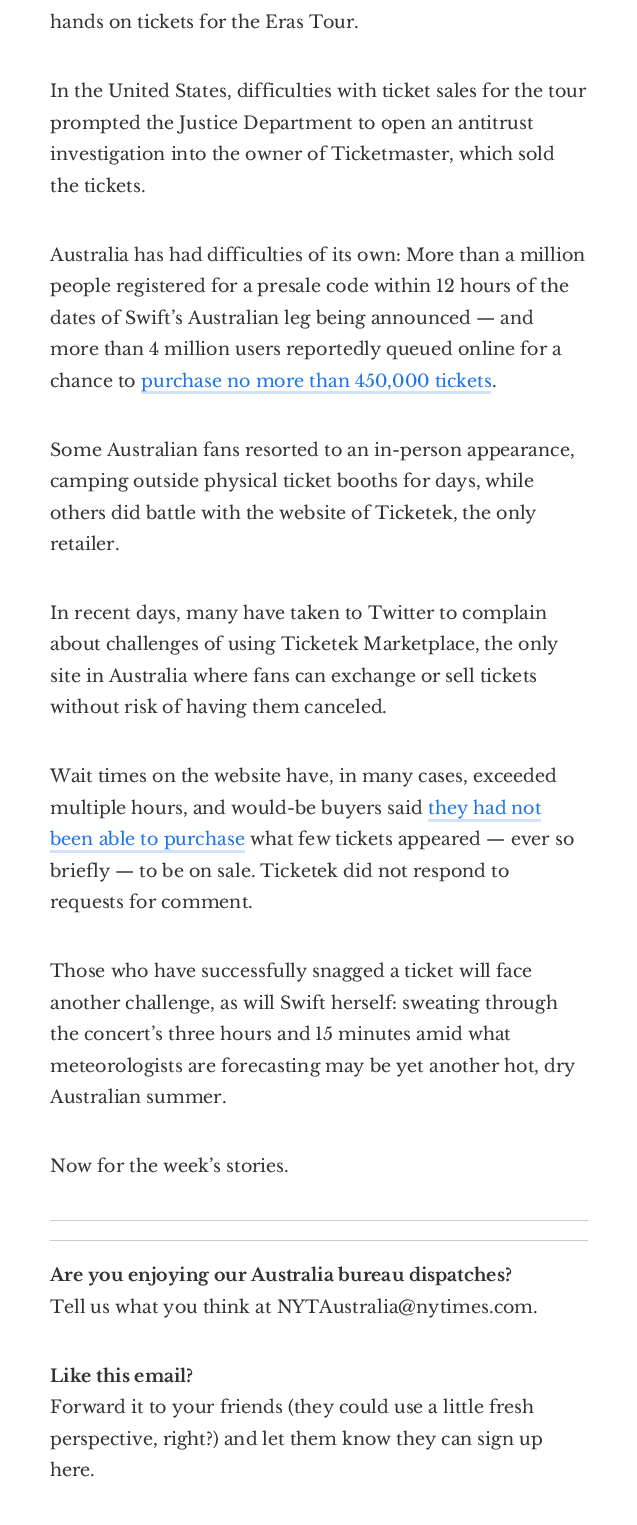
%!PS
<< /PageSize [637 1525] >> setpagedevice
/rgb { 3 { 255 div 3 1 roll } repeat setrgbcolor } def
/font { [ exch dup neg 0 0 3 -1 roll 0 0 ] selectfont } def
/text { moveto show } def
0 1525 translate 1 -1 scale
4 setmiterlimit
255 255 255 rgb
0 0 637 1525 rectfill
209 227 250 rgb
141 391 350 3 rectfill
428 819 113 3 rectfill
50 850 195 3 rectfill
204 204 204 rgb
50 1220 538 1 rectfill
50 1240 538 1 rectfill
/LibreBaskerville-Regular 17.5 font
51 51 51 rgb
(hands on tickets for the Eras Tour.) 50 28 text
(In the United States, difficulties with ticket sales for the tour) 50 97 text
(prompted the Justice Department to open an antitrust) 50 129 text
(investigation into the owner of Ticketmaster, which sold) 50 160 text
(the tickets.) 50 192 text
(Australia has had difficulties of its own: More than a million) 50 261 text
(people registered for a presale code within 12 hours of the) 50 292 text
(dates of Swift’s Australian leg being announced — and) 50 324 text
(more than 4 million users reportedly queued online for a) 50 355 text
(chance to) 50 387 text
26 115 232 rgb
(purchase no more than 450,000 tickets) 141 387 text
51 51 51 rgb
(.) 492 387 text
(Some Australian fans resorted to an in-person appearance,) 50 456 text
(camping outside physical ticket booths for days, while) 50 487 text
(others did battle with the website of Ticketek, the only) 50 519 text
(retailer.) 50 550 text
(In recent days, many have taken to Twitter to complain) 50 619 text
(about challenges of using Ticketek Marketplace, the only) 50 650 text
(site in Australia where fans can exchange or sell tickets) 50 682 text
(without risk of having them canceled.) 50 713 text
(Wait times on the website have, in many cases, exceeded) 50 782 text
(multiple hours, and would-be buyers said) 50 814 text
26 115 232 rgb
(they had not) 428 814 text
(been able to purchase) 50 845 text
51 51 51 rgb
(what few tickets appeared — ever so) 250 845 text
(briefly — to be on sale. Ticketek did not respond to) 50 877 text
(requests for comment.) 50 908 text
(Those who have successfully snagged a ticket will face) 50 977 text
(another challenge, as will Swift herself: sweating through) 50 1009 text
(the concert’s three hours and 15 minutes amid what) 50 1040 text
(meteorologists are forecasting may be yet another hot, dry) 50 1072 text
(Australian summer.) 50 1103 text
(Now for the week’s stories.) 50 1172 text
/LibreBaskerville-Bold 17.5 font
(Are you enjoying our Australia bureau dispatches?) 50 1281 text
/LibreBaskerville-Regular 17.5 font
(Tell us what you think at NYTAustralia@nytimes.com.) 50 1313 text
/LibreBaskerville-Bold 17.5 font
(Like this email?) 50 1382 text
/LibreBaskerville-Regular 17.5 font
(Forward it to your friends \(they could use a little fresh) 50 1413 text
(perspective, right?\) and let them know they can sign up) 50 1445 text
(here.) 50 1476 text
showpage
